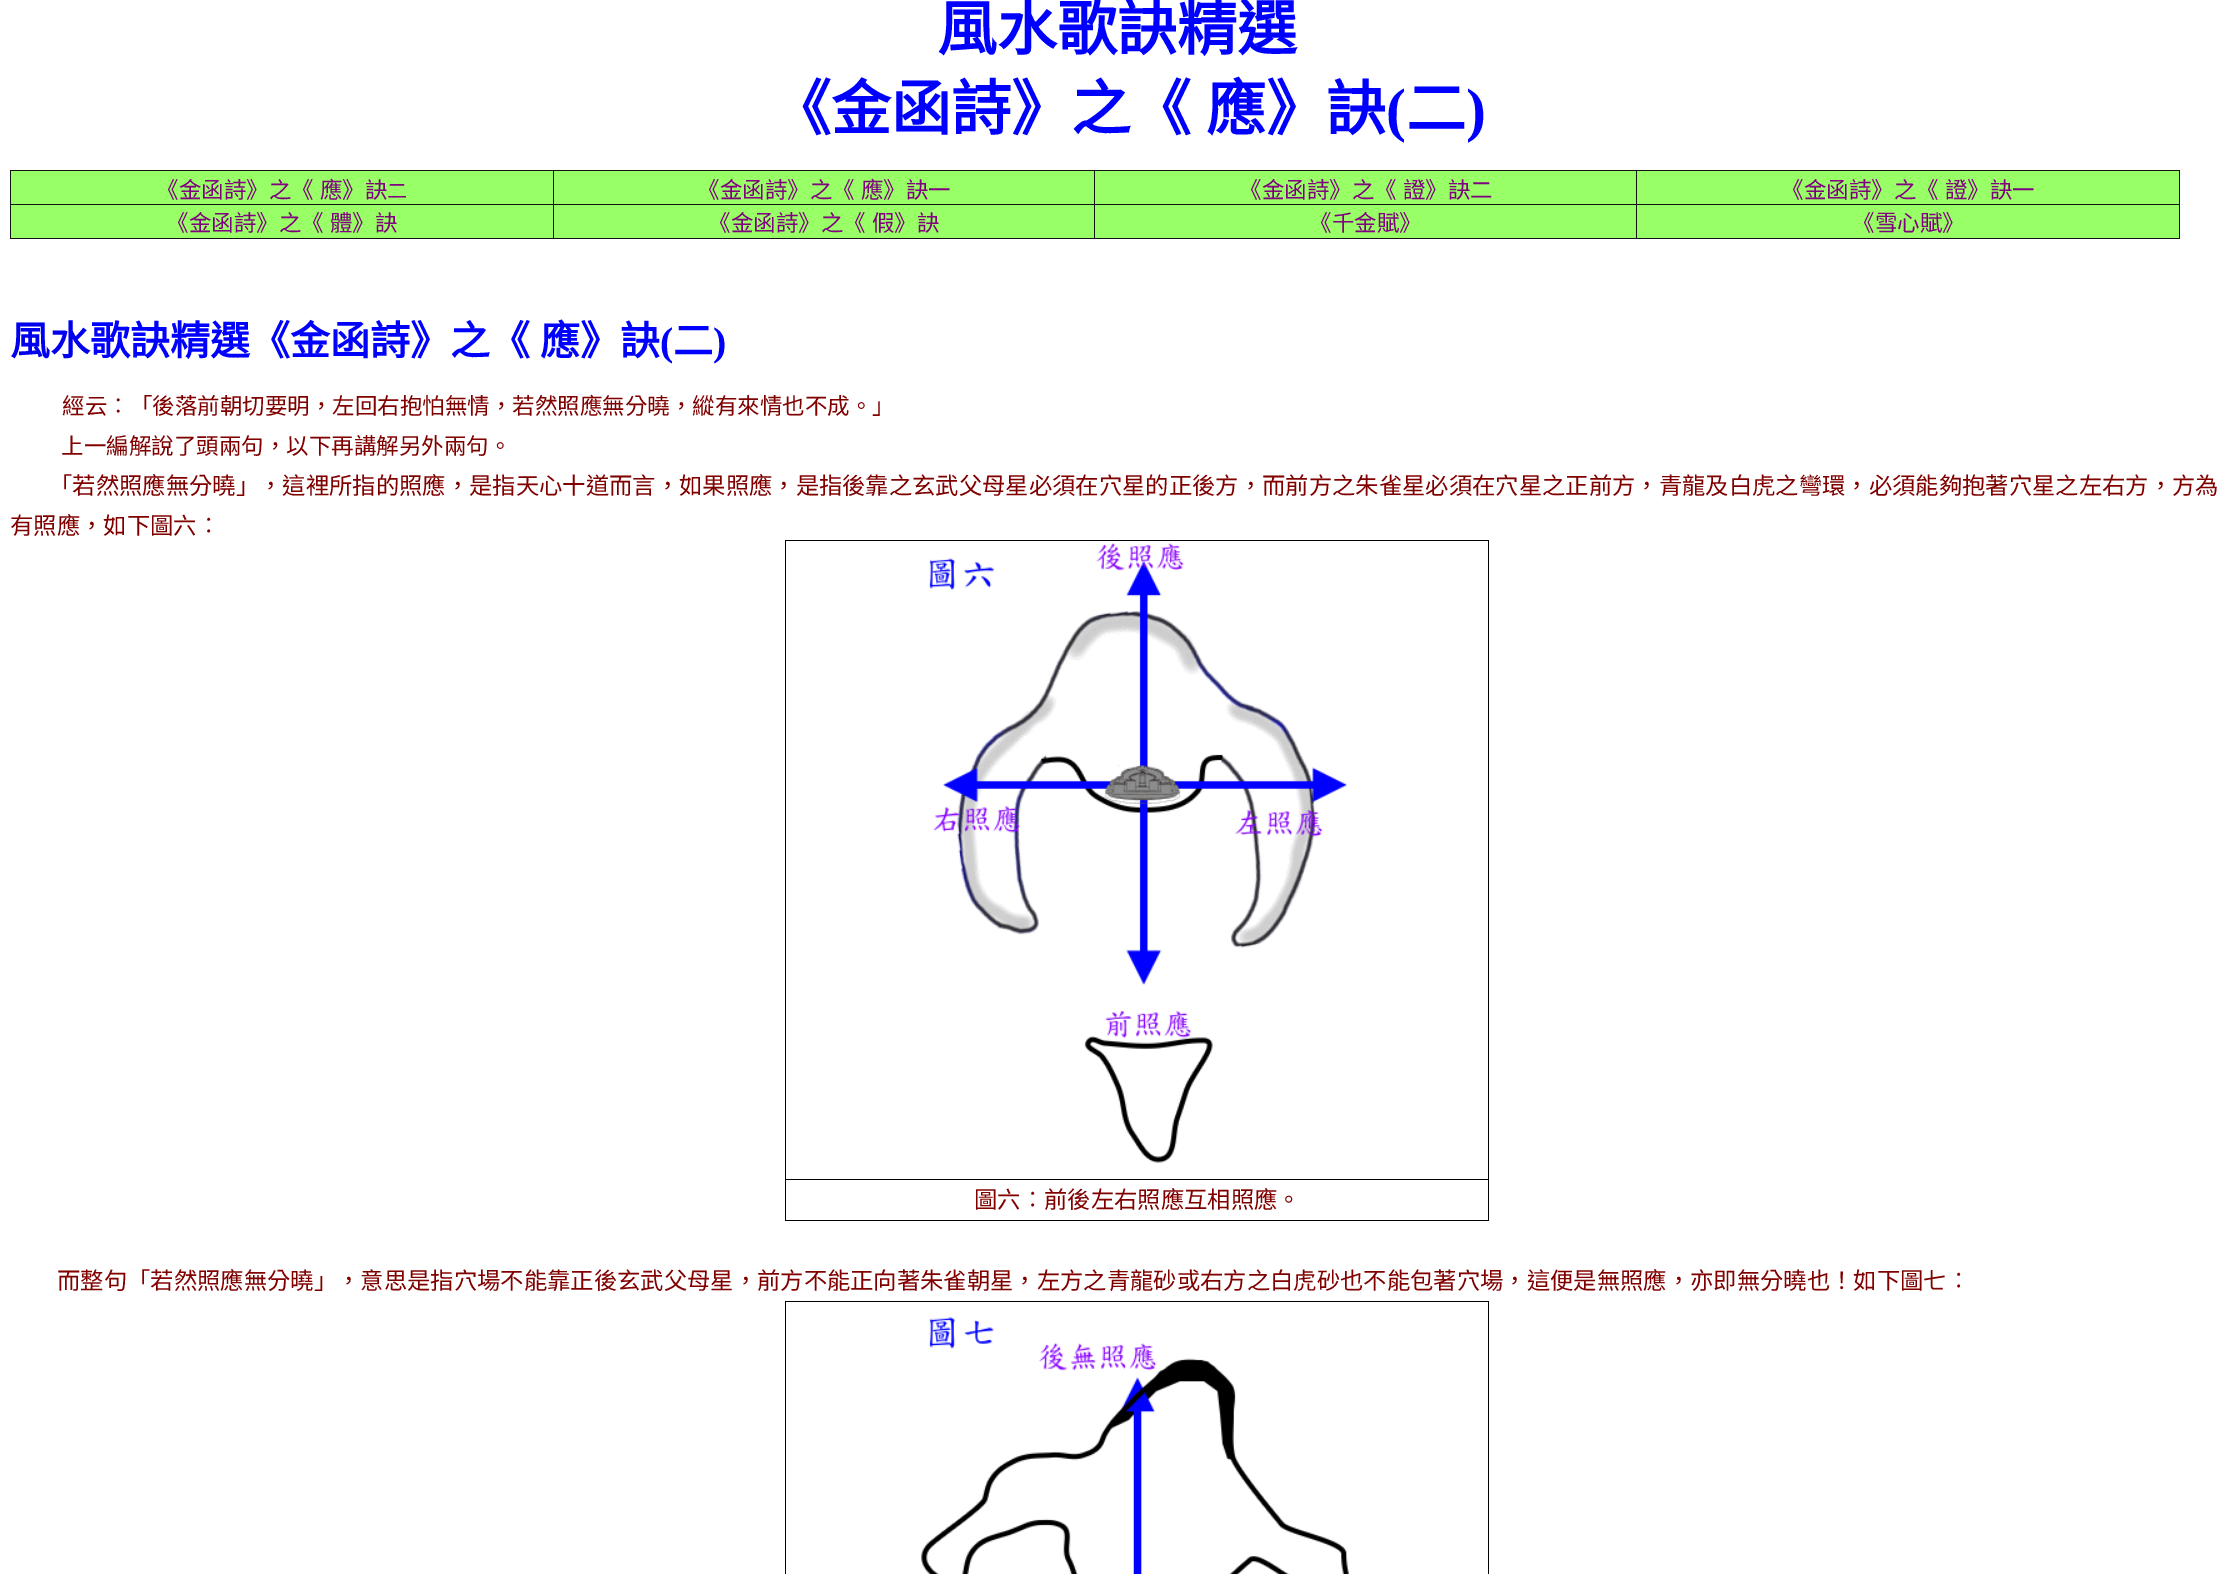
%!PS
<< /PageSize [2233 1574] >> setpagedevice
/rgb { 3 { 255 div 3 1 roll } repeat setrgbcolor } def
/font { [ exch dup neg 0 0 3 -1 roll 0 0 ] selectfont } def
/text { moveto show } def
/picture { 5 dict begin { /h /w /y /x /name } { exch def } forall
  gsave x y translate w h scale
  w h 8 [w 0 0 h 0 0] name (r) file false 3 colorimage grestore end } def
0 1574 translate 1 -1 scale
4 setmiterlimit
255 255 255 rgb
0 0 2233 1574 rectfill
17 17 17 rgb
10 170 2170 1 rectfill
2179 170 1 69 rectfill
10 238 2170 1 rectfill
10 170 1 69 rectfill
153 255 102 rgb
11 171 542 33 rectfill
554 171 540 33 rectfill
17 17 17 rgb
1636 204 544 1 rectfill
1636 204 1 35 rectfill
1094 204 544 1 rectfill
1094 204 1 35 rectfill
553 204 542 1 rectfill
553 204 1 35 rectfill
10 204 544 1 rectfill
553 170 1 35 rectfill
153 255 102 rgb
1095 171 541 33 rectfill
17 17 17 rgb
1094 170 1 35 rectfill
153 255 102 rgb
1637 171 542 33 rectfill
17 17 17 rgb
1636 170 1 35 rectfill
153 255 102 rgb
11 205 542 33 rectfill
554 205 540 33 rectfill
1095 205 541 33 rectfill
1637 205 542 33 rectfill
0 0 0 rgb
785 540 704 1 rectfill
1488 1179 1 42 rectfill
1488 540 1 640 rectfill
785 1220 704 1 rectfill
785 1179 1 42 rectfill
785 1179 704 1 rectfill
785 540 1 640 rectfill
(img_01.rgb) 929 543 419 620 picture
785 1301 704 1 rectfill
1488 1301 1 273 rectfill
785 1301 1 273 rectfill
(img_02.rgb) 921 1317 428 257 picture
/NotoSansCJKTC-Bold 60 font
0 0 255 rgb
(風水歌訣精選) 937 50 text
(《金函詩》之) 771 130 text
1131 130 moveto 2 0 32 (《 應》訣) widthshow
/LiberationSerif-Bold 60 font
(\() 1386 130 text
/NotoSansCJKTC-Bold 60 font
(二) 1406 130 text
/LiberationSerif-Bold 60 font
(\)) 1466 130 text
/NotoSansCJKTC-Regular 22.5 font
128 0 128 rgb
156 198 moveto 1 0 32 (《金函詩》之《 應》訣) widthshow
/NotoSansCJKTC-Regular 20 font
(二) 387 198 text
/NotoSansCJKTC-Regular 22.5 font
697 198 moveto 1 0 32 (《金函詩》之《 應》訣) widthshow
(一) 928 198 text
1239 198 moveto 1 0 32 (《金函詩》之《 證》訣二) widthshow
1781 198 moveto 1 0 32 (《金函詩》之《 證》訣一) widthshow
166 231 moveto 1 0 32 (《金函詩》之《 體》訣) widthshow
708 231 moveto 1 0 32 (《金函詩》之《 假》訣) widthshow
(《千金賦》) 1309 231 text
(《雪心賦》) 1852 231 text
/NotoSansCJKTC-Bold 40 font
0 0 238 rgb
(風水) 10 355 text
0 0 255 rgb
(歌訣精選《金函詩》之) 90 355 text
490 355 moveto 1 0 32 (《 應》訣) widthshow
/LiberationSerif-Bold 40 font
(\() 660 355 text
/NotoSansCJKTC-Bold 40 font
(二) 673 355 text
/LiberationSerif-Bold 40 font
(\)) 713 355 text
/NotoSansCJKTC-Regular 22.5 font
128 0 0 rgb
(經云︰「後落前朝切要明，左回右抱怕無情，若然照應無分曉，縱有來情也不成。」) 62 414 text
(上一編解說了頭兩句，以下再講解另外兩句。) 61 454 text
/NotoSansCJKTC-Regular 23.33 font
(「若然照應無分曉」，這裡所指的照應，是指天心十道而言，如果照應，是指後靠之玄武父母星必須在穴星的正後方，而前方之朱雀星必須在穴星之正前方，青龍及白虎之彎環，必須能夠抱著穴星之左右方，方為) 49 494 text
(有照應，如下圖六︰) 10 534 text
(圖六︰前後左右照應互相照應。) 974 1208 text
(而整句「若然照應無分曉」，意思是指穴場不能靠正後玄武父母星，前方不能正向著朱雀朝星，左方之青龍砂或右方之白虎砂也不能包著穴場，這便是無照應，亦即無分曉也！如下圖七︰) 57 1289 text
showpage
